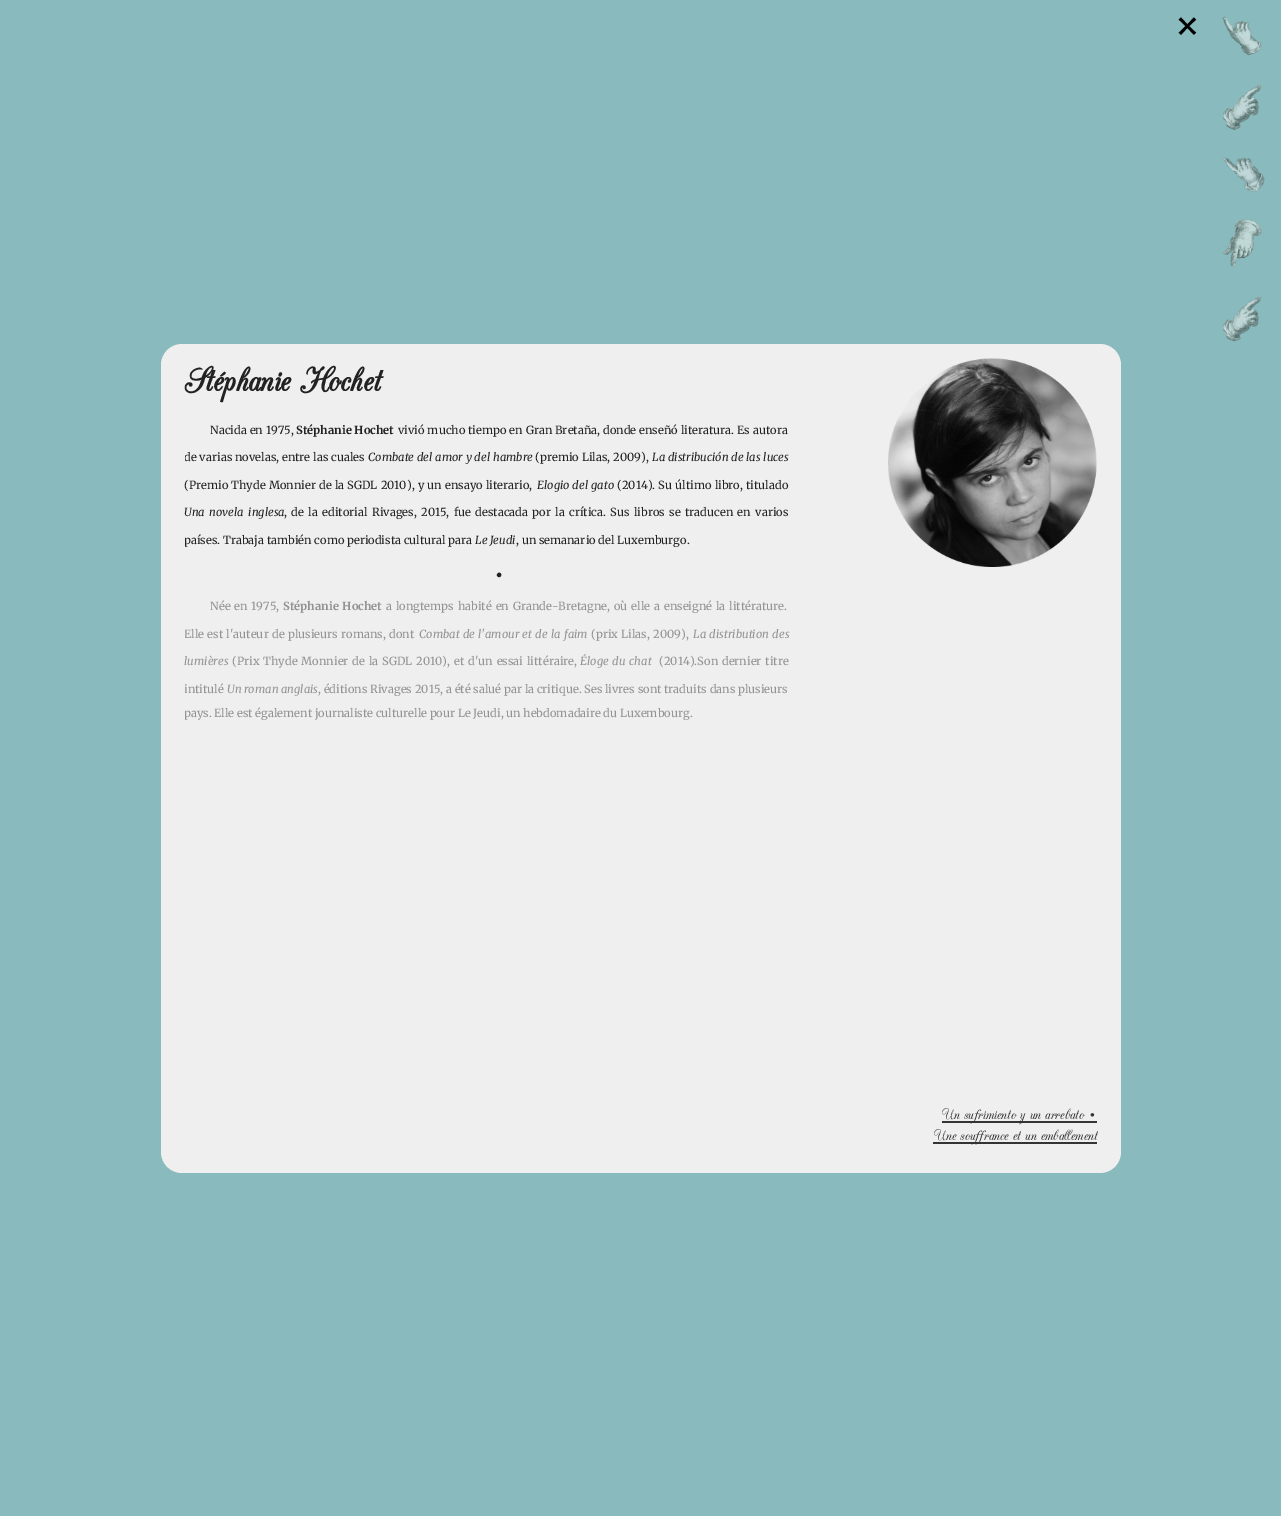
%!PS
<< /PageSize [1281 1516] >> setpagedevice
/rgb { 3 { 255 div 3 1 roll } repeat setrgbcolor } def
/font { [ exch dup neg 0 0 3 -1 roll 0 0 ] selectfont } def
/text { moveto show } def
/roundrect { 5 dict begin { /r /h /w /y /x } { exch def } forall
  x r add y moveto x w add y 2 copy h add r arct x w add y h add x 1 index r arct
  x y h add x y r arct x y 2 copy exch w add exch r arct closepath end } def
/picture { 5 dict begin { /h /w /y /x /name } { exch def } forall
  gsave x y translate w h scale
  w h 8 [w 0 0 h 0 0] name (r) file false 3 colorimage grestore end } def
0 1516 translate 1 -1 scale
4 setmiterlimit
136 186 190 rgb
0 0 1281 1516 rectfill
240 239 239 rgb
161 344 960 829 21 roundrect fill
(img_01.rgb) 888 358 209 209 picture
52 52 52 rgb
942 1121 155 2 rectfill
933 1142 164 2 rectfill
(img_02.rgb) 1222 16 40 40 picture
(img_03.rgb) 1223 84 39 46 picture
(img_04.rgb) 1222 157 43 35 picture
(img_05.rgb) 1222 219 40 48 picture
(img_06.rgb) 1223 295 39 47 picture
/Merriweather-Regular 40 font
0 0 0 rgb
(×) 1174 39 text
/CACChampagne-Bold 40 font
34 34 34 rgb
(Stéphanie Hochet) 184 391 text
/Merriweather-Regular 11.2 font
210 434 moveto 0.25 0 32 (Nacida en 1975,) widthshow
/Merriweather-Bold 11.2 font
(Stéphanie Hochet) 296 434 text
/Merriweather-Regular 11.2 font
398 434 moveto 0.25 0 32 (vivió mucho tiempo en Gran Bretaña, donde enseñó literatura. Es autora) widthshow
gsave
185 417 621 713 rectclip
184 461 moveto 0.25 0 32 (de varias novelas, entre las cuales) widthshow
grestore
/Merriweather-LightItalic 11.2 font
368 461 moveto 0.25 0 32 (Combate del amor y del hambre) widthshow
/Merriweather-Regular 11.2 font
535 461 moveto 0.25 0 32 (\(premio Lilas, 2009\),) widthshow
/Merriweather-LightItalic 11.2 font
652 461 moveto 0.25 0 32 (La distribución de las luces) widthshow
/Merriweather-Regular 11.2 font
184 489 moveto 0.5 0 32 (\(Premio Thyde Monnier de la SGDL 2010\), y un ensayo literario,) widthshow
/Merriweather-LightItalic 11.2 font
537 489 moveto 0.5 0 32 (Elogio del gato) widthshow
/Merriweather-Regular 11.2 font
617 489 moveto 0.5 0 32 (\(2014\). Su último libro, titulado) widthshow
/Merriweather-LightItalic 11.2 font
184 516 moveto 2 0 32 (Una novela inglesa) widthshow
/Merriweather-Regular 11.2 font
284 516 moveto 1.75 0 32 (, de la editorial Rivages, 2015, fue destacada por la crítica. Sus libros se traducen en varios) widthshow
gsave
185 417 621 713 rectclip
(países. Trabaja también como periodista cultural para) 184 544 text
grestore
/Merriweather-LightItalic 11.2 font
(Le Jeudi) 475 544 text
/Merriweather-Regular 11.2 font
(, un semanario del Luxemburgo.) 516 544 text
/Merriweather-Regular 24 font
(•) 494 583 text
/Merriweather-Regular 11.2 font
148 146 147 rgb
210 610 moveto 1.25 0 32 (Née en 1975,) widthshow
/Merriweather-Bold 11.2 font
283 610 moveto 1 0 32 (Stéphanie Hochet) widthshow
/Merriweather-Regular 11.2 font
386 610 moveto 1.25 0 32 (a longtemps habité en Grande-Bretagne, où elle a enseigné la littérature.) widthshow
gsave
185 417 621 713 rectclip
184 638 moveto 0.75 0 32 (Elle est l'auteur de plusieurs romans, dont) widthshow
grestore
/Merriweather-LightItalic 11.2 font
419 638 moveto 0.75 0 32 (Combat de l'amour et de la faim) widthshow
/Merriweather-Regular 11.2 font
591 638 moveto 0.75 0 32 (\(prix Lilas, 2009\),) widthshow
/Merriweather-LightItalic 11.2 font
693 638 moveto 1 0 32 (La distribution des) widthshow
(lumières) 184 665 text
/Merriweather-Regular 11.2 font
232 665 moveto 1.25 0 32 (\(Prix Thyde Monnier de la SGDL 2010\), et d'un essai littéraire,) widthshow
/Merriweather-LightItalic 11.2 font
580 665 moveto 1.25 0 32 (Éloge du chat) widthshow
/Merriweather-Regular 11.2 font
659 665 moveto 1.25 0 32 (\(2014\).Son dernier titre) widthshow
gsave
185 417 621 713 rectclip
(intitulé) 184 693 text
grestore
/Merriweather-LightItalic 11.2 font
(Un roman anglais) 227 693 text
/Merriweather-Regular 11.2 font
318 693 moveto 0.1 0 32 (, éditions Rivages 2015, a été salué par la critique. Ses livres sont traduits dans plusieurs) widthshow
gsave
185 417 621 713 rectclip
(pays. Elle est également journaliste culturelle pour Le Jeudi, un hebdomadaire du Luxembourg.) 184 717 text
grestore
/CACChampagne-Regular 17.6 font
52 52 52 rgb
(Un sufrimiento y un arrebato •) 942 1119 text
(Une souffrance et un emballement) 934 1140 text
showpage
